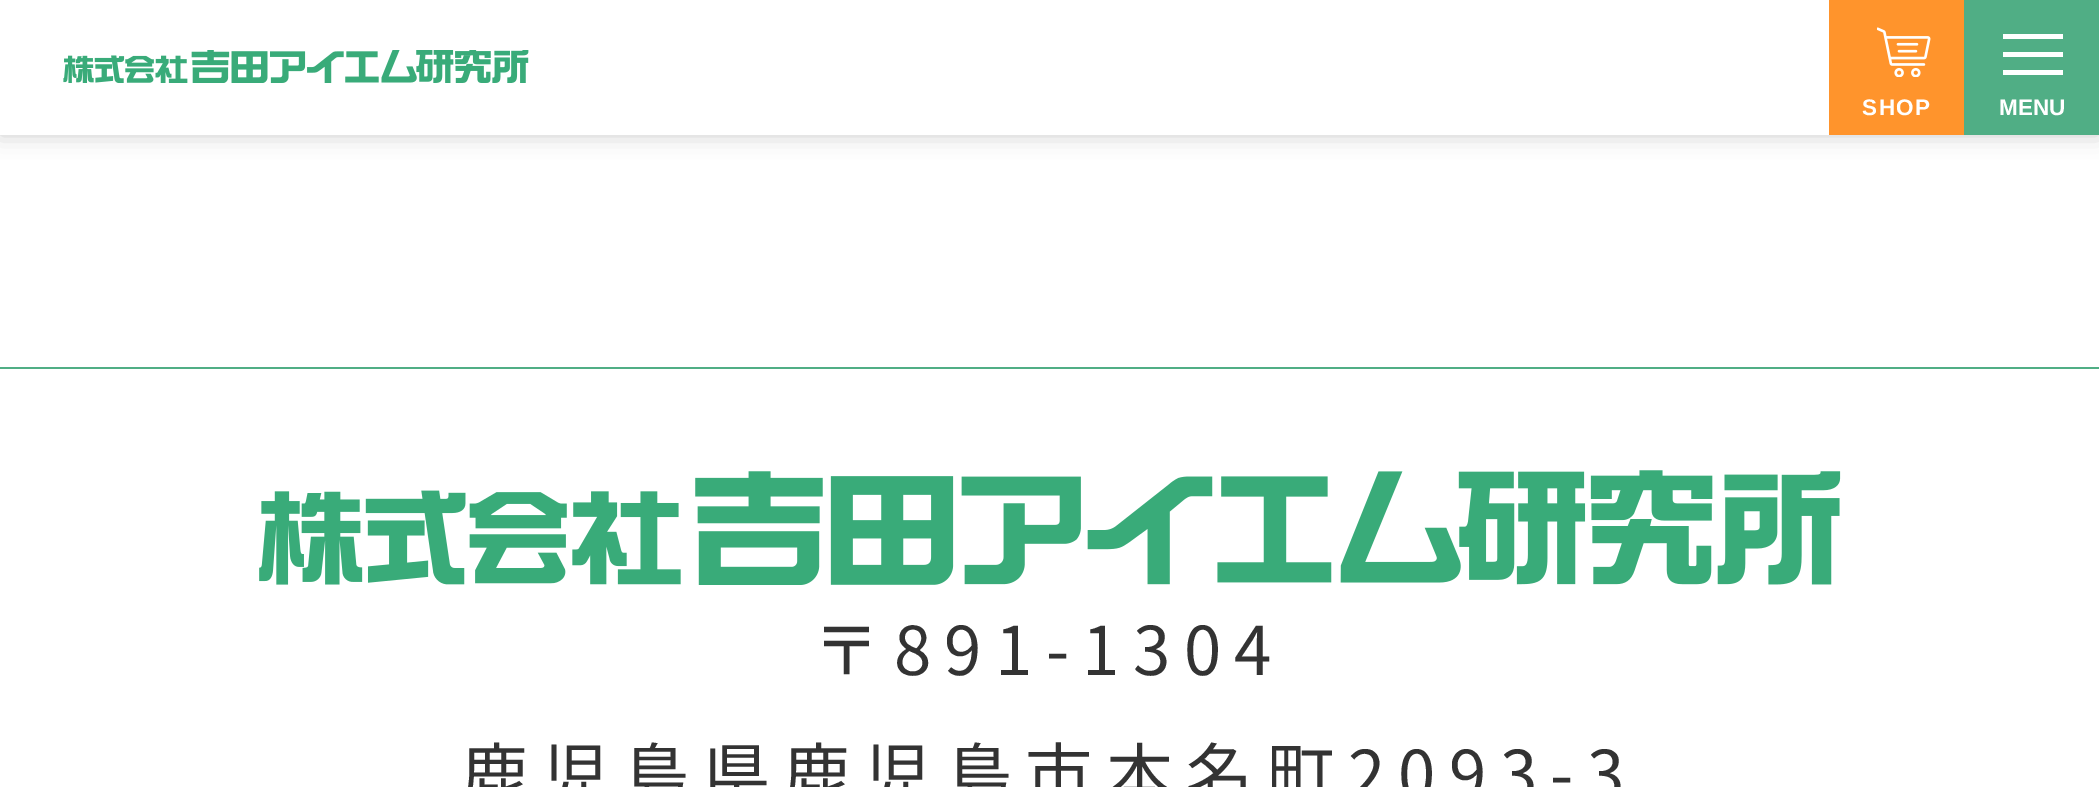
%!PS
<< /PageSize [2099 787] /PageUsesTransparency true >> setpagedevice
/rgb { 3 { 255 div 3 1 roll } repeat setrgbcolor } def
/font { [ exch dup neg 0 0 3 -1 roll 0 0 ] selectfont } def
/text { moveto show } def
/alpha { dup .setfillconstantalpha .setstrokeconstantalpha } def
/roundrect { 5 dict begin { /r /h /w /y /x } { exch def } forall
  x r add y moveto x w add y 2 copy h add r arct x w add y h add x 1 index r arct
  x y h add x y r arct x y 2 copy exch w add exch r arct closepath end } def
/shadow { 12 dict begin { /a /b /q /h /w /y /x } { exch def } forall gsave /was 0 def
  9 -2 -9 { dup b mul 4 div /e exch def 1 sub .425 mul 2.718 exch exp 1 add a .99 .min exch div /now exch def
    1 1 now sub 1 was sub div sub alpha /was now def
    w h .min e 2 mul add 0 gt { x e sub y e sub w e 2 mul add h e 2 mul add
      q e add b .6 mul add w h .min 2 div e add .min 0 .max roundrect fill } if } for grestore end } def
/picture { 5 dict begin { /h /w /y /x /name } { exch def } forall
  gsave x y translate w h scale
  w h 8 [w 0 0 h 0 0] name (r) file false 3 colorimage grestore end } def
0 .pushpdf14devicefilter
0 787 translate 1 -1 scale
4 setmiterlimit
255 255 255 rgb
0 0 2099 787 rectfill
0 0 0 rgb
0 0 2099 135 0 11 0.2 shadow
255 255 255 rgb
0 0 1829 135 rectfill
(img_01.rgb) 63 50 466 33 picture
255 148 44 rgb
1829 0 135 135 rectfill
(img_02.rgb) 1877 27 54 50 picture
80 174 133 rgb
1964 0 135 135 rectfill
255 255 255 rgb
2003 34 60 5 rectfill
2003 52 60 5 rectfill
2003 70 60 5 rectfill
80 174 133 rgb
0 367 2099 2 rectfill
(img_03.rgb) 259 470 1582 115 picture
/LiberationSans-Bold 22.5 font
255 255 255 rgb
1862 115 moveto 1.5 0 (SHOP) ashow
(MENU) 1999 115 text
/NotoSansJP-Regular 67.2 font
51 51 51 rgb
813 675 moveto 13.4 0 (〒891-1304) ashow
461 799 moveto 13.4 0 (鹿児島県鹿児島市本名町2093-3) ashow
.poppdf14devicefilter showpage
